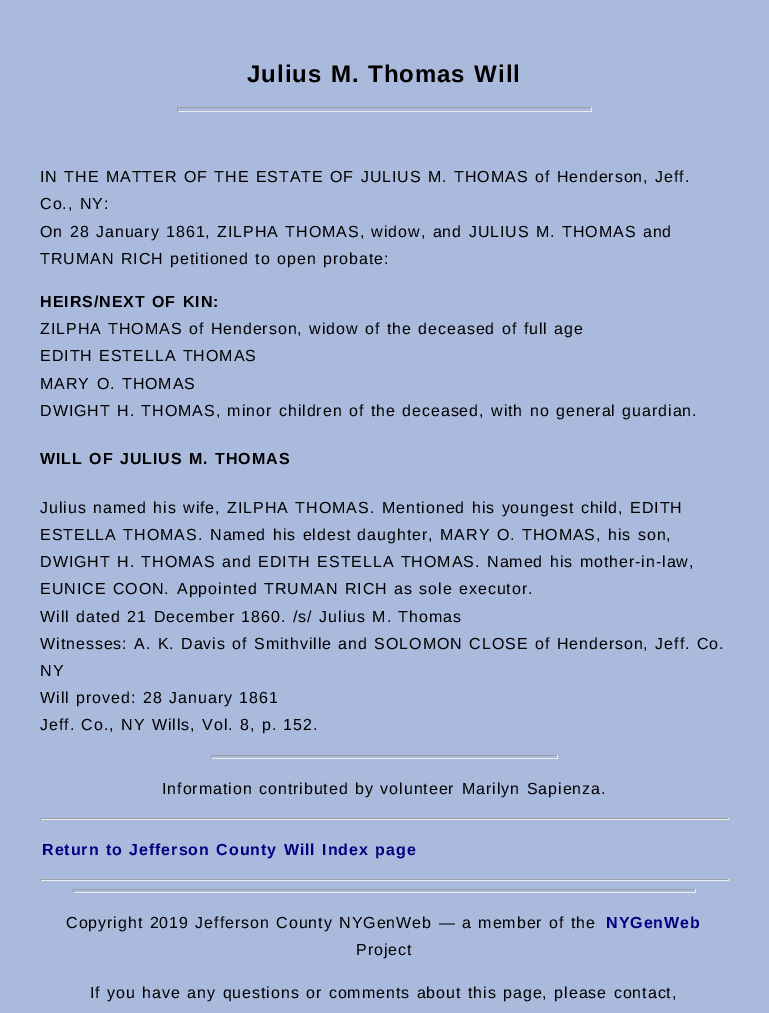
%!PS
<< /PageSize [769 1013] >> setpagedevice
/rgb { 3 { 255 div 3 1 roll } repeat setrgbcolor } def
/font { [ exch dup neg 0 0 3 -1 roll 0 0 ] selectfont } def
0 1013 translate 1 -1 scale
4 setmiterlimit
170 186 221 rgb
0 0 769 1013 rectfill
159 159 159 rgb
177 107 415 1 rectfill
238 238 238 rgb
591 107 1 5 rectfill
177 111 415 1 rectfill
159 159 159 rgb
177 107 1 5 rectfill
211 755 347 1 rectfill
238 238 238 rgb
557 755 1 4 rectfill
211 758 347 1 rectfill
159 159 159 rgb
211 755 1 4 rectfill
40 818 689 1 rectfill
238 238 238 rgb
728 818 1 2 rectfill
40 819 689 1 rectfill
159 159 159 rgb
40 818 1 2 rectfill
40 879 689 1 rectfill
238 238 238 rgb
728 879 1 2 rectfill
40 880 689 1 rectfill
159 159 159 rgb
40 879 1 2 rectfill
73 889 623 1 rectfill
238 238 238 rgb
695 889 1 4 rectfill
73 892 623 1 rectfill
159 159 159 rgb
73 889 1 4 rectfill
/LiberationSans-Bold 24 font
0 0 0 rgb
247 82 moveto 1.1 0 32 0.95 0 (Julius M. Thomas Will) awidthshow
/LiberationSans-Regular 16 font
40 182 moveto 1.1 0 32 0.95 0 (IN THE MATTER OF THE ESTATE OF JULIUS M. THOMAS of Henderson, Jeff.) awidthshow
40 209 moveto 1.1 0 32 0.95 0 (Co., NY:) awidthshow
40 237 moveto 1.1 0 32 0.95 0 (On 28 January 1861, ZILPHA THOMAS, widow, and JULIUS M. THOMAS and) awidthshow
40 264 moveto 1.1 0 32 0.95 0 (TRUMAN RICH petitioned to open probate:) awidthshow
/LiberationSans-Bold 16 font
40 307 moveto 1.1 0 32 0.95 0 (HEIRS/NEXT OF KIN:) awidthshow
/LiberationSans-Regular 16 font
40 334 moveto 1.1 0 32 0.95 0 (ZILPHA THOMAS of Henderson, widow of the deceased of full age) awidthshow
40 361 moveto 1.1 0 32 0.95 0 (EDITH ESTELLA THOMAS) awidthshow
40 389 moveto 1.1 0 32 0.95 0 (MARY O. THOMAS) awidthshow
40 416 moveto 1.1 0 32 0.95 0 (DWIGHT H. THOMAS, minor children of the deceased, with no general guardian.) awidthshow
/LiberationSans-Bold 16 font
40 464 moveto 1.1 0 32 0.95 0 (WILL OF JULIUS M. THOMAS) awidthshow
/LiberationSans-Regular 16 font
40 513 moveto 1.1 0 32 0.95 0 (Julius named his wife, ZILPHA THOMAS.) awidthshow
382 513 moveto 1.1 0 32 0.95 0 (Mentioned his youngest child, EDITH) awidthshow
40 540 moveto 1.1 0 32 0.95 0 (ESTELLA THOMAS.) awidthshow
210 540 moveto 1.1 0 32 0.95 0 (Named his eldest daughter, MARY O. THOMAS, his son,) awidthshow
40 567 moveto 1.1 0 32 0.95 0 (DWIGHT H. THOMAS) awidthshow
222 567 moveto 1.1 0 32 0.95 0 (and EDITH ESTELLA THOMAS.) awidthshow
487 567 moveto 1.1 0 32 0.95 0 (Named his mother-in-law,) awidthshow
40 594 moveto 1.1 0 32 0.95 0 (EUNICE COON.) awidthshow
177 594 moveto 1.1 0 32 0.95 0 (Appointed TRUMAN RICH as sole executor.) awidthshow
40 622 moveto 1.1 0 32 0.95 0 (Will dated 21 December 1860.) awidthshow
293 622 moveto 1.1 0 32 0.95 0 (/s/ Julius M. Thomas) awidthshow
40 649 moveto 0.95 0 (Witnesses:) ashow
134 649 moveto 1.1 0 32 0.95 0 (A. K. Davis of Smithville and SOLOMON CLOSE of Henderson, Jeff. Co.) awidthshow
40 676 moveto 0.95 0 (NY) ashow
40 703 moveto 1.1 0 32 0.95 0 (Will proved:) awidthshow
143 703 moveto 1.1 0 32 0.95 0 (28 January 1861) awidthshow
40 730 moveto 1.1 0 32 0.95 0 (Jeff. Co., NY Wills, Vol. 8, p. 152.) awidthshow
162 794 moveto 1.1 0 32 0.95 0 (Information contributed by volunteer) awidthshow
462 794 moveto 1.1 0 32 0.95 0 (Marilyn Sapienza.) awidthshow
/LiberationSans-Bold 16 font
0 0 128 rgb
42 855 moveto 1.1 0 32 0.95 0 (Return to Jefferson County Will Index page) awidthshow
/LiberationSans-Regular 16 font
0 0 0 rgb
66 928 moveto 1.1 0 32 0.95 0 (Copyright 2019 Jefferson County NYGenWeb — a member of the) awidthshow
/LiberationSans-Bold 16 font
0 0 128 rgb
606 928 moveto 0.95 0 (NYGenWeb) ashow
/LiberationSans-Regular 16 font
0 0 0 rgb
356 955 moveto 0.95 0 (Project) ashow
90 998 moveto 1.1 0 32 0.95 0 (If you have any questions or comments about this page, please contact,) awidthshow
showpage
